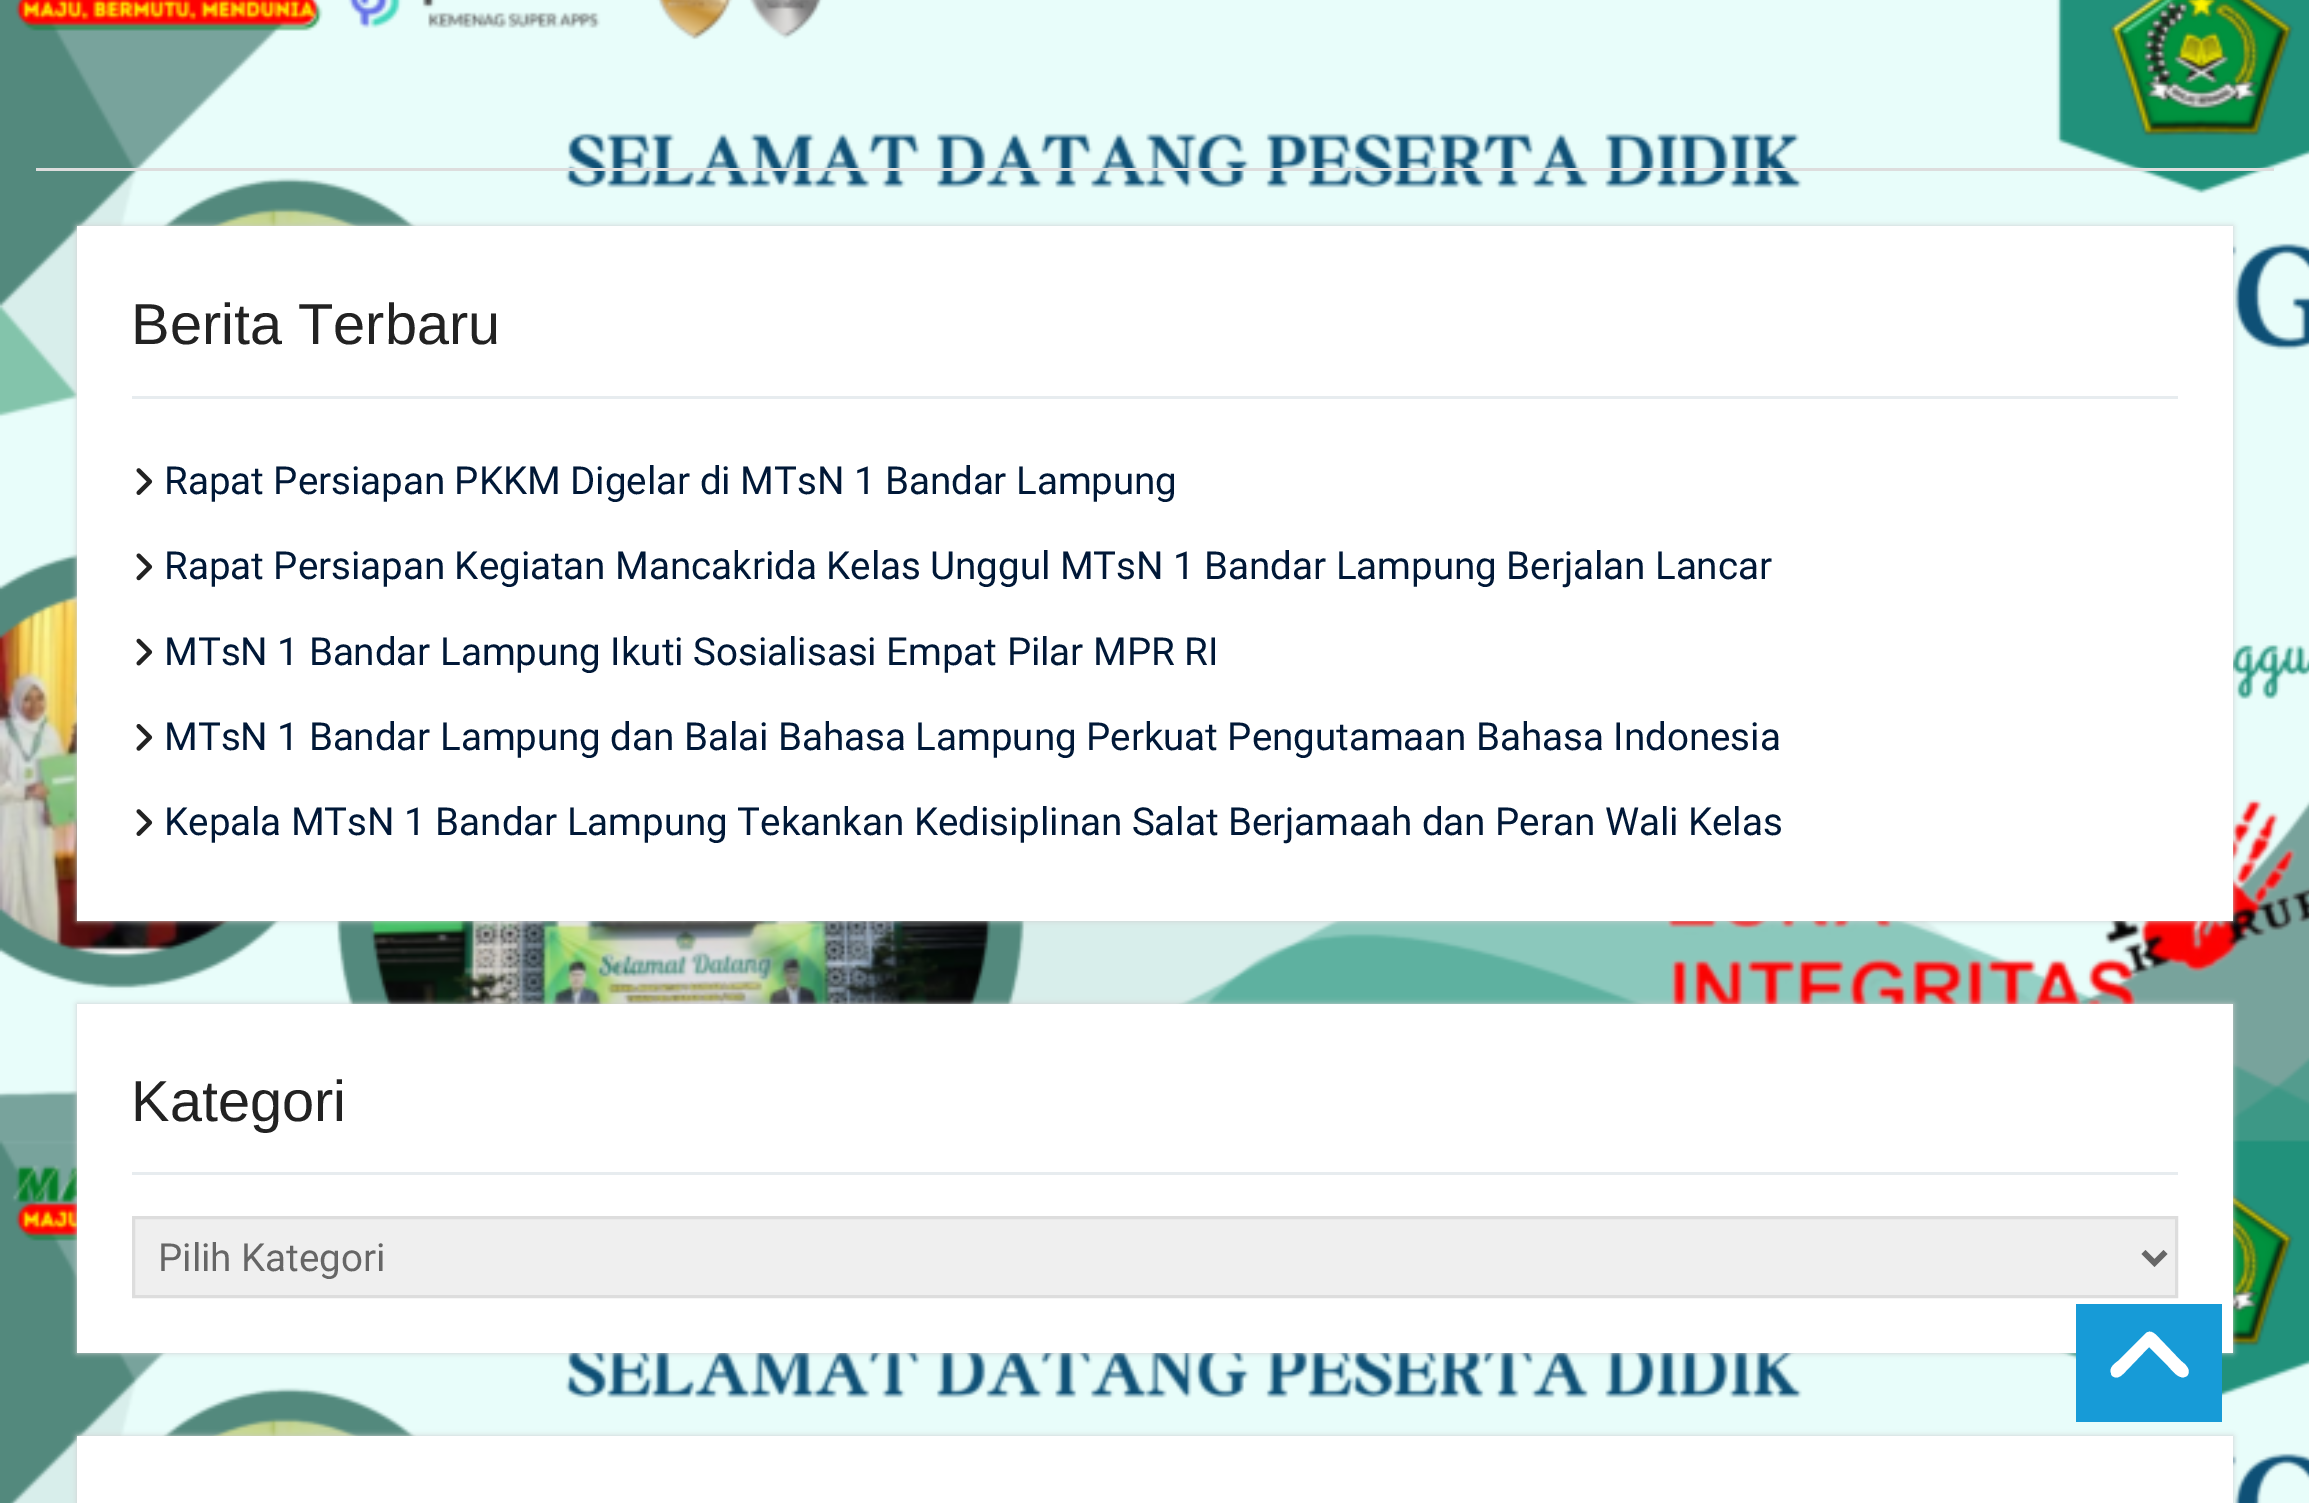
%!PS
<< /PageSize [2309 1503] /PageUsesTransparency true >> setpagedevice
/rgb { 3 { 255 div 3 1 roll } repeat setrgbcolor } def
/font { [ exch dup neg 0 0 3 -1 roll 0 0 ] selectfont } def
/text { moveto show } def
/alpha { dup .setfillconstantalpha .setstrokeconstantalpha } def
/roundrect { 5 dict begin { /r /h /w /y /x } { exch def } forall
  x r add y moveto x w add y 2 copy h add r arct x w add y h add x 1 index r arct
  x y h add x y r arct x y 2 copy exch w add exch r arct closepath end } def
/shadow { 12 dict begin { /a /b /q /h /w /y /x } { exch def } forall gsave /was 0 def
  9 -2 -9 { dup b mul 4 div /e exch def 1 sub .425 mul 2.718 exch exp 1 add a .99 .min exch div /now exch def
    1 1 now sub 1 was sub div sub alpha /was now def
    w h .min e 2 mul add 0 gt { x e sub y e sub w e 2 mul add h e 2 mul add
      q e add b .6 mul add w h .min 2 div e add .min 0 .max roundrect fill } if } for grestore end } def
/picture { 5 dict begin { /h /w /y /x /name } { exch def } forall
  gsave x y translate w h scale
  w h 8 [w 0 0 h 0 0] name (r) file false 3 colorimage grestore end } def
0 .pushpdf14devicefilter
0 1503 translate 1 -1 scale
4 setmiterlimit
255 255 255 rgb
0 0 2309 1503 rectfill
(img_01.rgb) 0 0 2309 1503 picture
221 221 221 rgb
36 168 2238 3 rectfill
207 207 207 rgb
77 226 2156 695 0 3 1 shadow
255 255 255 rgb
77 226 2156 695 rectfill
231 236 239 rgb
132 396 2046 3 rectfill
(img_02.rgb) 136 468 17 27 picture
(img_03.rgb) 136 553 17 28 picture
(img_04.rgb) 136 638 17 28 picture
(img_05.rgb) 136 724 17 27 picture
(img_02.rgb) 136 809 17 27 picture
207 207 207 rgb
77 1004 2156 349 0 3 1 shadow
255 255 255 rgb
77 1004 2156 349 rectfill
231 236 239 rgb
132 1172 2046 3 rectfill
239 239 239 rgb
133.5 1217.5 moveto 2043 0 rlineto 0 79 rlineto -2043 0 rlineto closepath gsave fill grestore
221 221 221 rgb
3 setlinewidth
stroke
102 102 102 rgb
5.5 setlinewidth
2143.5 1252 moveto 11 11 rlineto 11 -11 rlineto stroke
207 207 207 rgb
77 1436 2156 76 0 3 1 shadow
255 255 255 rgb
77 1436 2156 67 rectfill
23 155 215 rgb
2076 1304 146 118 rectfill
255 255 255 rgb
2145 1334 moveto 6 -6 11 1 15 5 rcurveto 21 22 rlineto 4 3 11 9 6 15 rcurveto -2 1 -4 2 -6 1 rcurveto -5 -1 -10 -8 -13 -11 rcurveto -19 -19 rlineto -23 24 rlineto -3 3 -7 8 -12 6 rcurveto -2 -1 -3 -2 -3 -4 rcurveto -2 -5 3 -9 7 -12 rcurveto closepath fill
/LiberationSans-Regular 57.75 font
34 34 34 rgb
(Berita Terbaru) 131 344 text
/Roboto-Regular 38.5 font
0 24 55 rgb
(Rapat Persiapan PKKM Digelar di MTsN 1 Bandar Lampung) 164 494 text
(Rapat Persiapan Kegiatan Mancakrida Kelas Unggul MTsN 1 Bandar Lampung Berjalan Lancar) 164 579 text
(MTsN 1 Bandar Lampung Ikuti Sosialisasi Empat Pilar MPR RI) 164 665 text
(MTsN 1 Bandar Lampung dan Balai Bahasa Lampung Perkuat Pengutamaan Bahasa Indonesia) 164 750 text
(Kepala MTsN 1 Bandar Lampung Tekankan Kedisiplinan Salat Berjamaah dan Peran Wali Kelas) 164 835 text
/LiberationSans-Regular 57.75 font
34 34 34 rgb
(Kategori) 131 1121 text
/Roboto-Regular 38.5 font
102 102 102 rgb
(Pilih Kategori) 158 1271 text
.poppdf14devicefilter showpage
